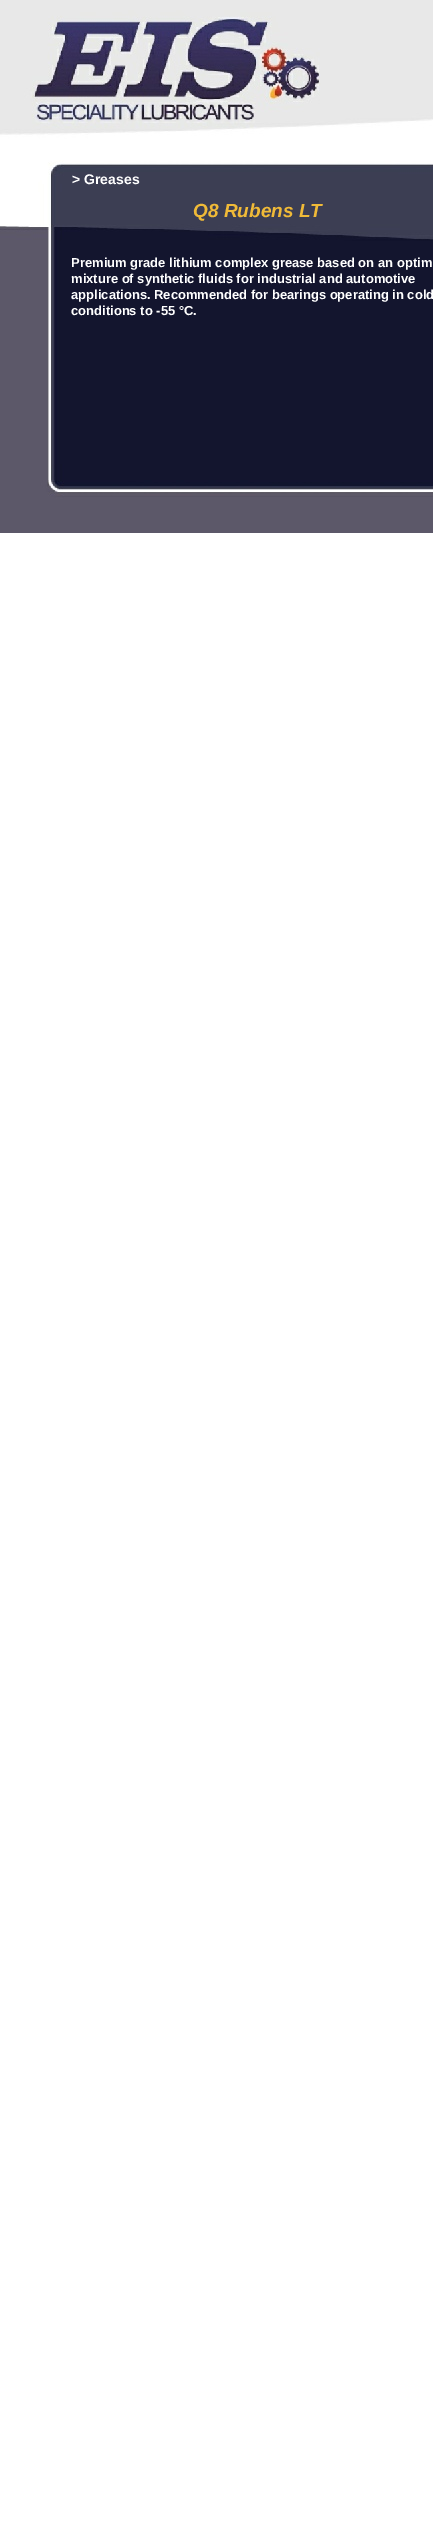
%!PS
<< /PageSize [433 2535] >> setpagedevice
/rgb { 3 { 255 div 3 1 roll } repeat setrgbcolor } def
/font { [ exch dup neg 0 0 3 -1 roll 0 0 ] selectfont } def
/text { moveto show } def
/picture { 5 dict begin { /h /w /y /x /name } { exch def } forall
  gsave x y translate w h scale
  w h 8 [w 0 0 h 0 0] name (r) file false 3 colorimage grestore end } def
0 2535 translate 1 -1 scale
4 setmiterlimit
255 255 255 rgb
0 0 433 2535 rectfill
(img_01.rgb) 0 0 433 533 picture
/LiberationSans-Bold 14 font
(> Greases) 72 184 text
/LiberationSans-BoldItalic 19 font
240 186 56 rgb
(Q8 Rubens LT) 193 217 text
/LiberationSans-Bold 13 font
255 255 255 rgb
(Premium grade lithium complex grease based on an optim) 71 267 text
(mixture of synthetic fluids for industrial and automotive) 71 283 text
(applications. Recommended for bearings operating in cold) 71 299 text
(conditions to -55 °C.) 71 315 text
showpage
